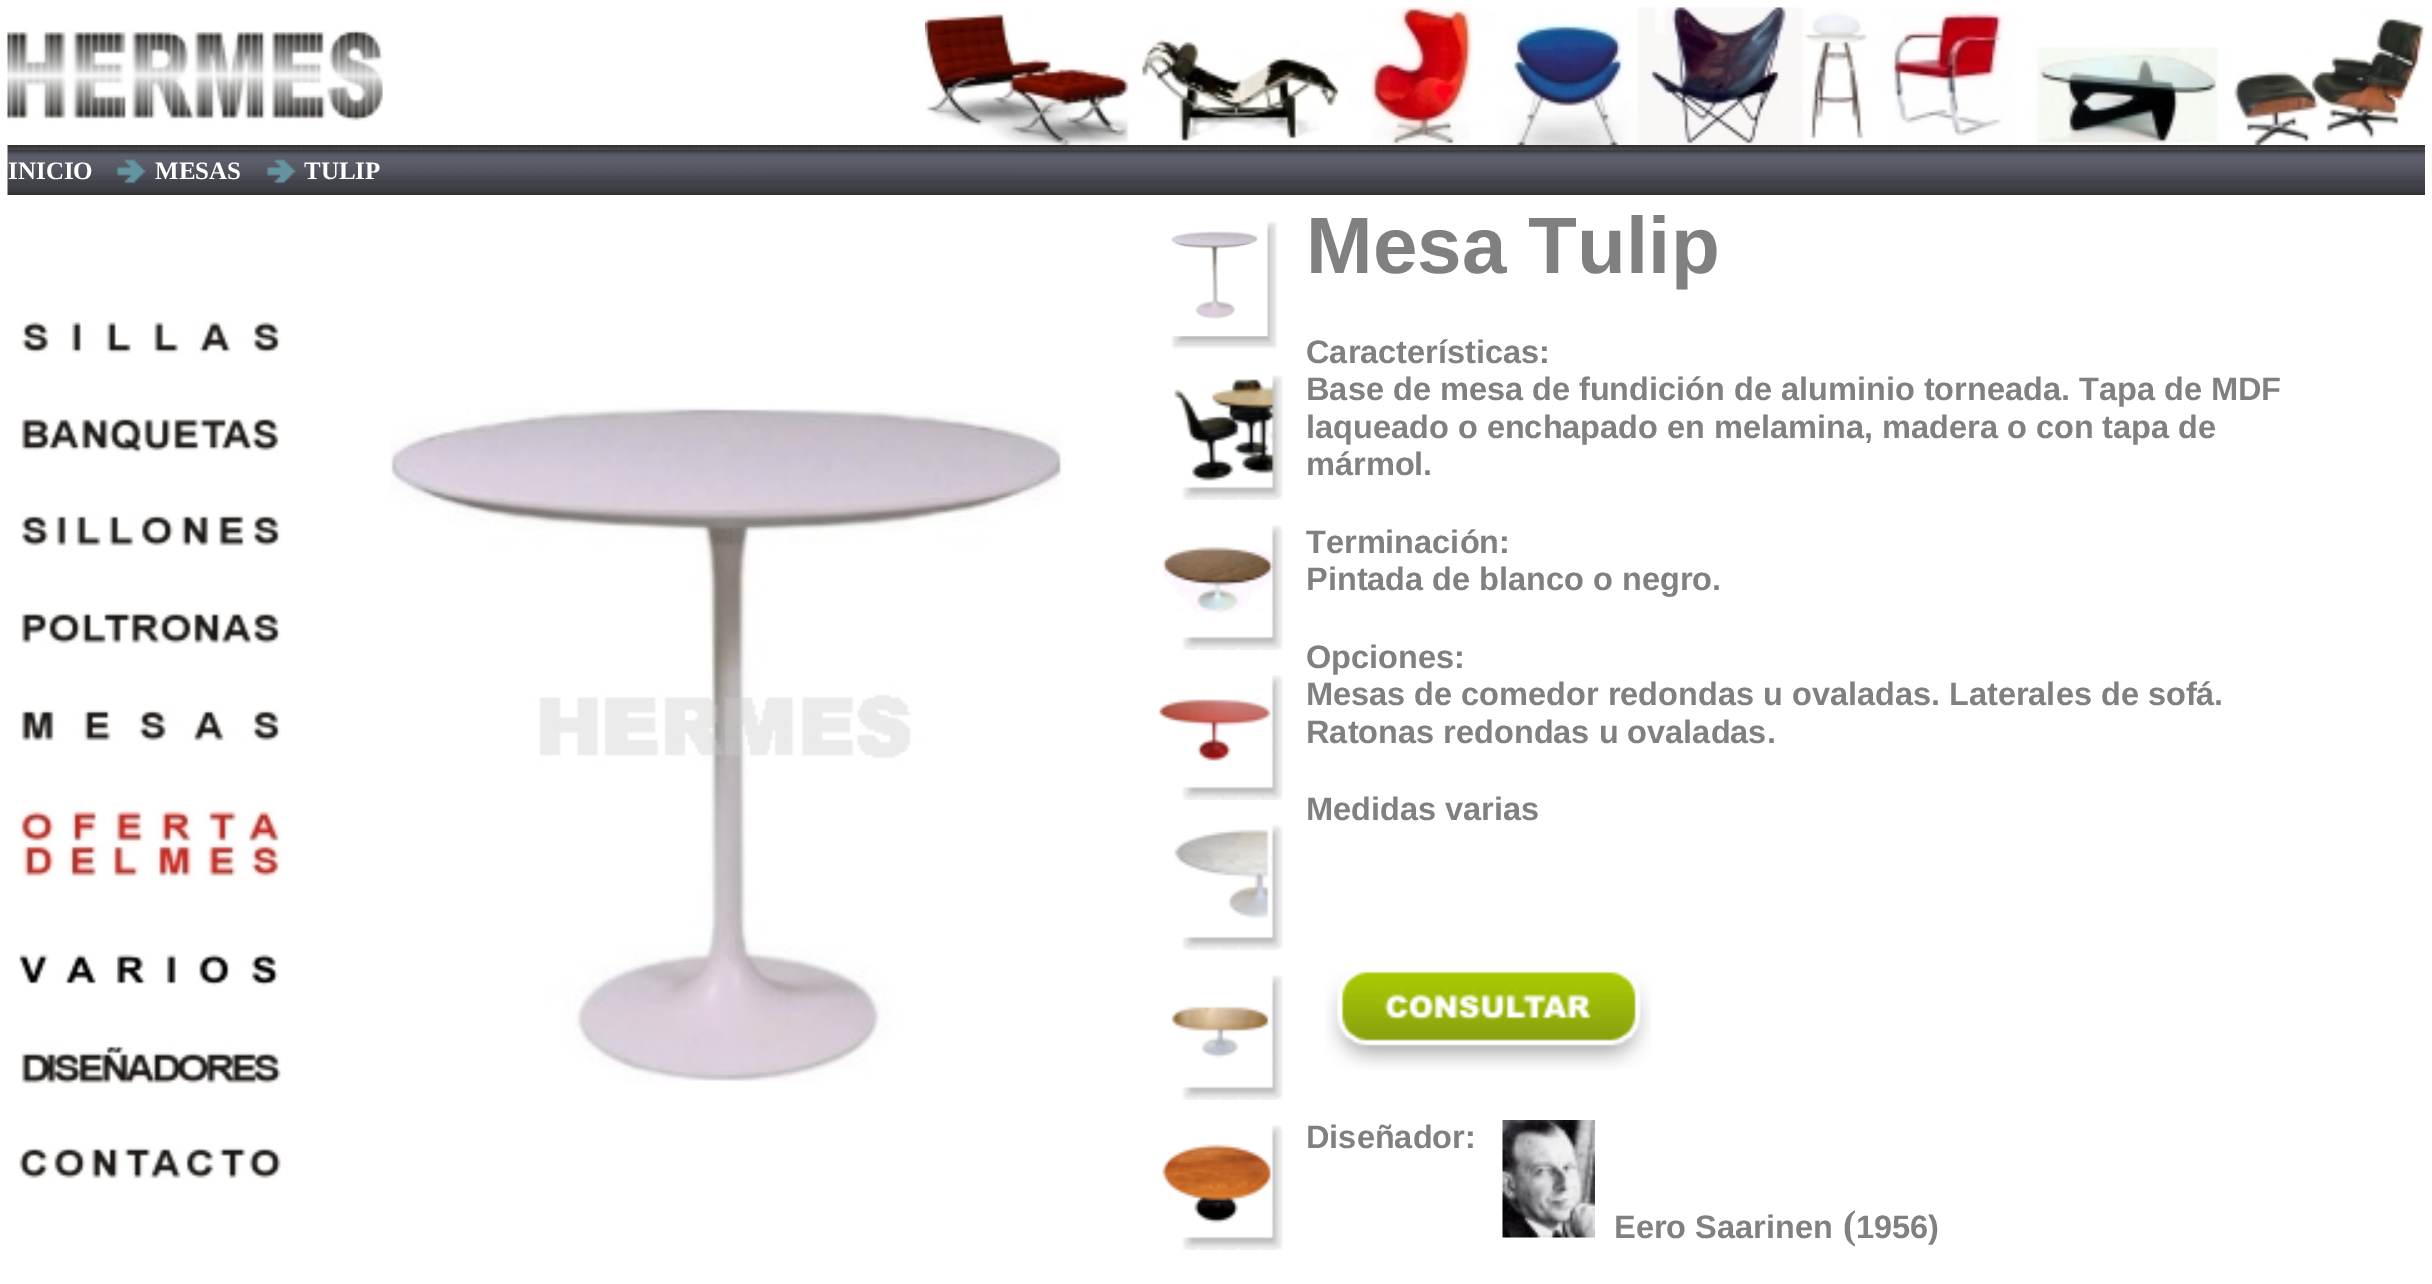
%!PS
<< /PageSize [2432 1284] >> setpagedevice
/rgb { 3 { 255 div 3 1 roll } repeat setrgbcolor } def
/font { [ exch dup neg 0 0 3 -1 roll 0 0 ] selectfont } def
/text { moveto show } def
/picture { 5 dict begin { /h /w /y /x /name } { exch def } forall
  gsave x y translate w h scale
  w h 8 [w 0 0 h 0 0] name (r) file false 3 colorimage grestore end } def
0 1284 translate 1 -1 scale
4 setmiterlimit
255 255 255 rgb
0 0 2432 1284 rectfill
(img_01.rgb) 7 29 376 92 picture
(img_02.rgb) 925 7 1500 138 picture
(img_03.rgb) 7 145 2418 50 picture
(img_04.rgb) 116 159 30 25 picture
(img_05.rgb) 266 159 30 25 picture
(img_06.rgb) 21 321 260 33 picture
(img_07.rgb) 21 417 258 37 picture
(img_08.rgb) 21 514 260 32 picture
(img_09.rgb) 21 612 260 32 picture
(img_10.rgb) 21 709 260 32 picture
(img_11.rgb) 18 809 264 70 picture
(img_12.rgb) 19 954 260 32 picture
(img_13.rgb) 21 1045 260 39 picture
(img_14.rgb) 19 1147 262 32 picture
(img_15.rgb) 390 407 675 676 picture
(img_16.rgb) 1171 221 106 128 picture
(img_17.rgb) 1174 375 109 125 picture
(img_18.rgb) 1162 525 121 125 picture
(img_19.rgb) 1157 675 126 125 picture
(img_20.rgb) 1174 825 109 125 picture
(img_21.rgb) 1171 975 112 125 picture
(img_22.rgb) 1161 1125 122 125 picture
(img_23.rgb) 1325 971 327 99 picture
(img_24.rgb) 1502 1120 93 118 picture
/LiberationSerif-Bold 25 font
(INICIO) 8 179 text
(MESAS) 155 179 text
(TULIP) 304 179 text
/LiberationSans-Bold 80 font
128 128 128 rgb
(Mesa Tulip) 1306 273 text
/LiberationSans-Bold 32.5 font
(Características:) 1306 363 text
(Base de mesa de fundición de aluminio torneada. Tapa de MDF) 1306 400 text
(laqueado o enchapado en melamina, madera o con tapa de) 1306 438 text
(mármol.) 1306 475 text
(Terminación:) 1306 553 text
(Pintada de blanco o negro.) 1306 590 text
(Opciones:) 1306 668 text
(Mesas de comedor redondas u ovaladas. Laterales de sofá.) 1306 705 text
(Ratonas redondas u ovaladas.) 1306 743 text
(Medidas varias) 1306 820 text
(Diseñador:) 1306 1148 text
(Eero Saarinen) 1614 1238 text
/LiberationSerif-Bold 40 font
(\() 1843 1238 text
/LiberationSans-Bold 32.5 font
(1956\)) 1856 1238 text
showpage
